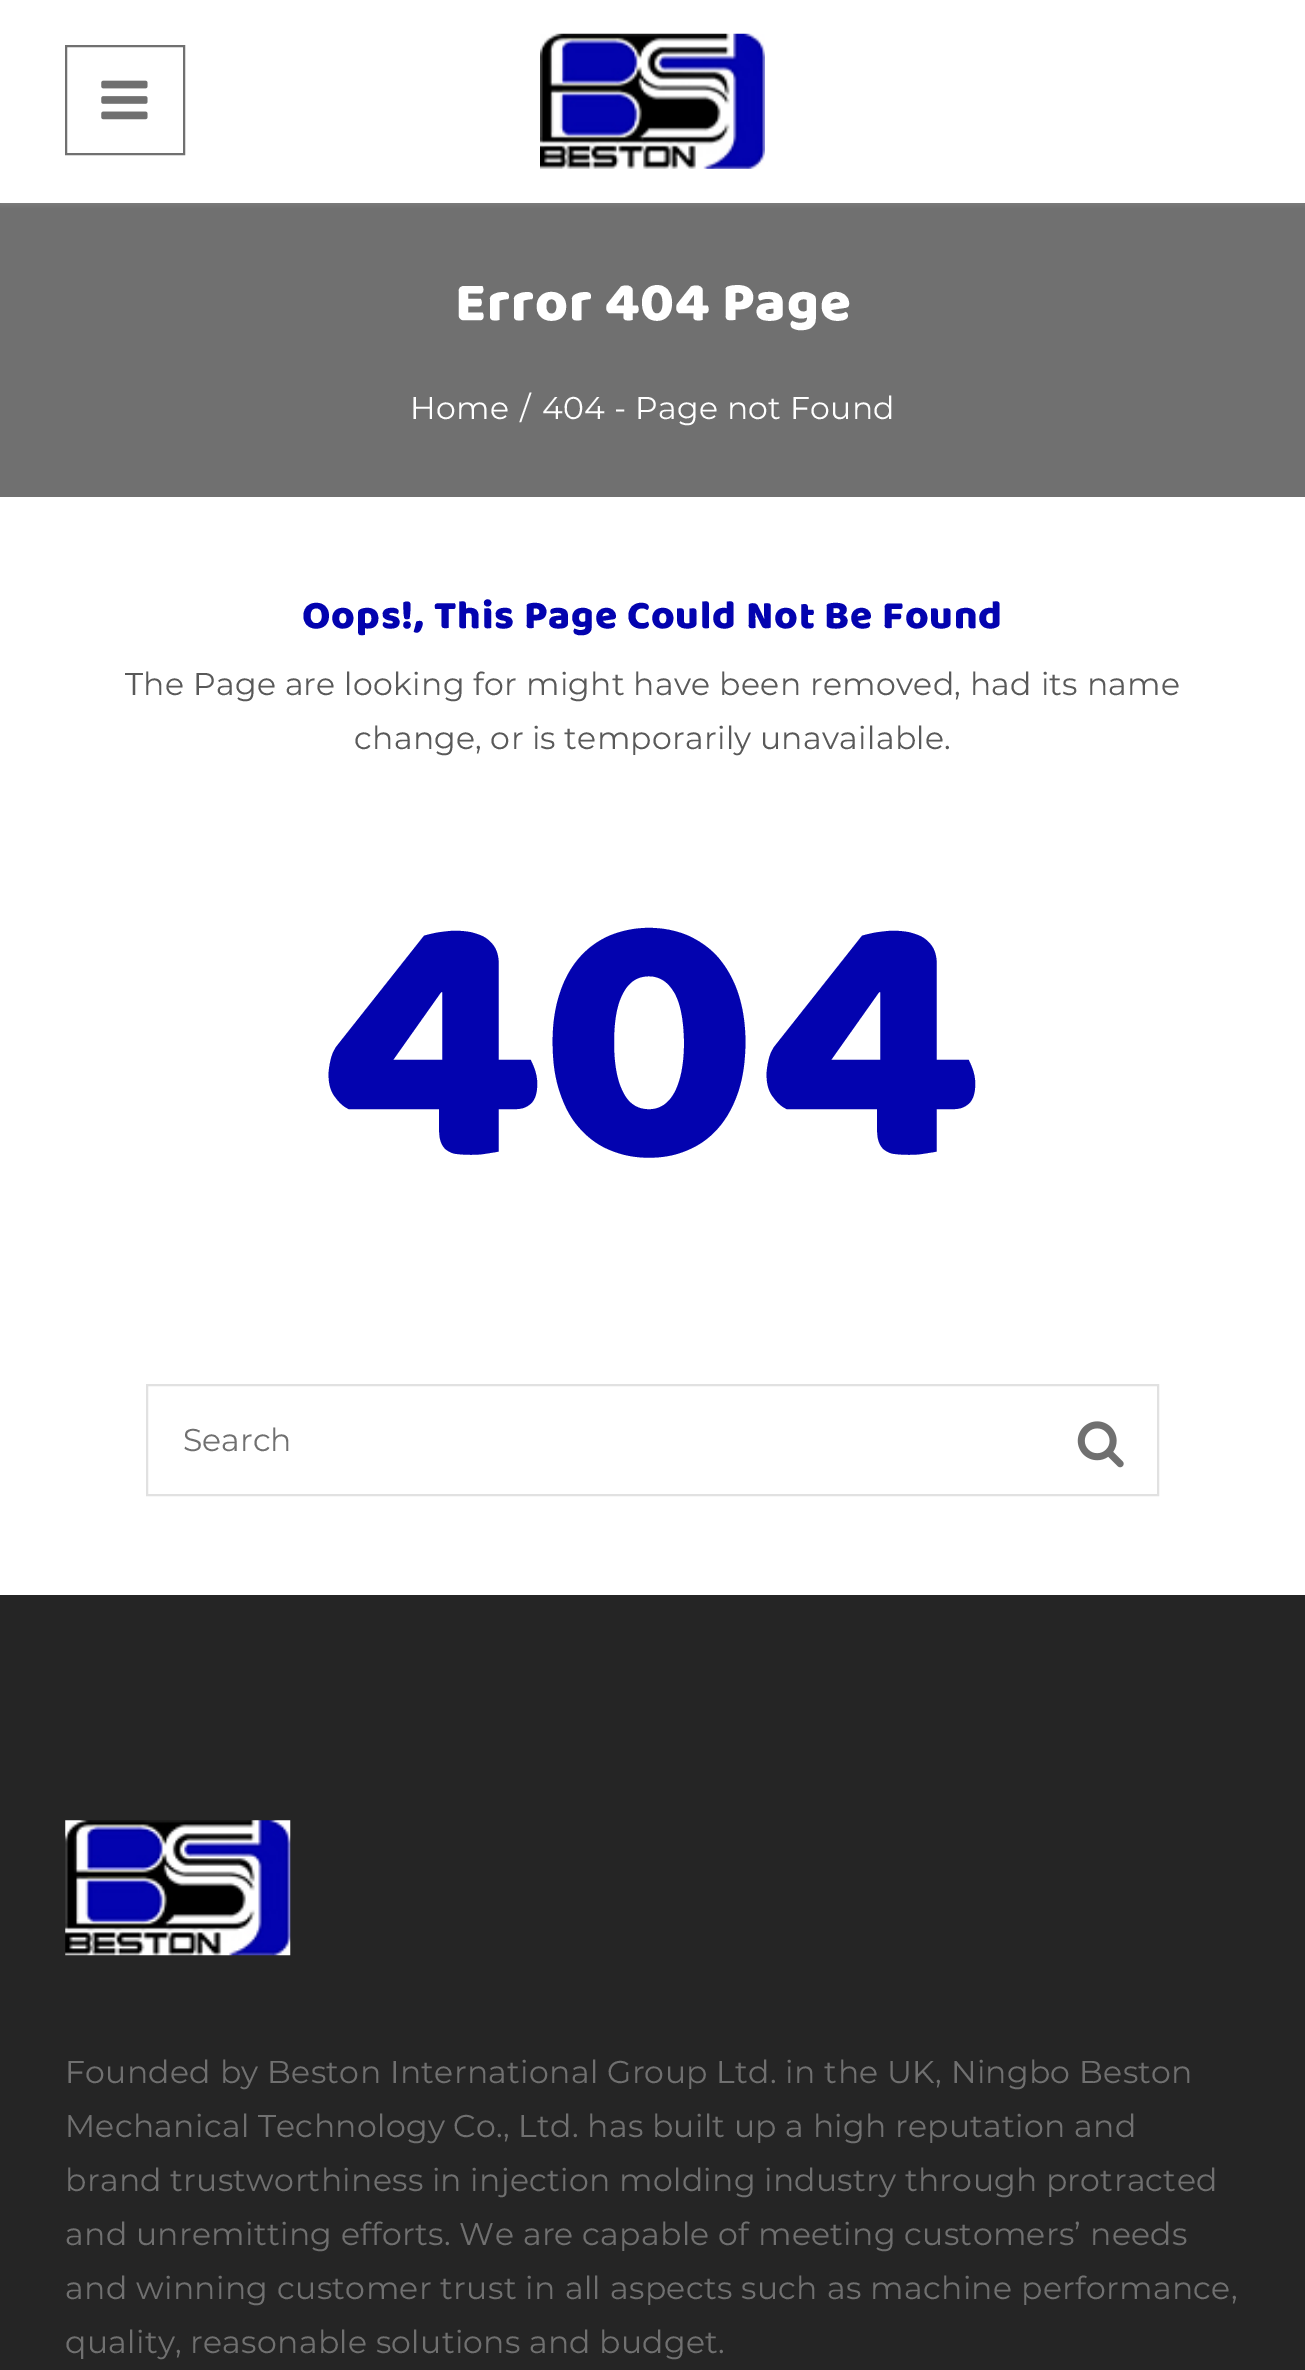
%!PS
<< /PageSize [1305 2370] /PageUsesTransparency true >> setpagedevice
/rgb { 3 { 255 div 3 1 roll } repeat setrgbcolor } def
/font { [ exch dup neg 0 0 3 -1 roll 0 0 ] selectfont } def
/text { moveto show } def
/alpha { dup .setfillconstantalpha .setstrokeconstantalpha } def
/roundrect { 5 dict begin { /r /h /w /y /x } { exch def } forall
  x r add y moveto x w add y 2 copy h add r arct x w add y h add x 1 index r arct
  x y h add x y r arct x y 2 copy exch w add exch r arct closepath end } def
/shadow { 12 dict begin { /a /b /q /h /w /y /x } { exch def } forall gsave /was 0 def
  9 -2 -9 { dup b mul 4 div /e exch def 1 sub .425 mul 2.718 exch exp 1 add a .99 .min exch div /now exch def
    1 1 now sub 1 was sub div sub alpha /was now def
    w h .min e 2 mul add 0 gt { x e sub y e sub w e 2 mul add h e 2 mul add
      q e add b .6 mul add w h .min 2 div e add .min 0 .max roundrect fill } if } for grestore end } def
/picture { 5 dict begin { /h /w /y /x /name } { exch def } forall
  gsave x y translate w h scale
  w h 8 [w 0 0 h 0 0] name (r) file false 3 colorimage grestore end } def
0 .pushpdf14devicefilter
0 2370 translate 1 -1 scale
4 setmiterlimit
255 255 255 rgb
0 0 1305 2370 rectfill
112 112 112 rgb
0 203 1305 294 rectfill
161 161 161 rgb
0 2 1305 203 0 2 0.25 shadow
255 255 255 rgb
0 0 1305 203 rectfill
112 112 112 rgb
2 setlinewidth
66 46 118 108 rectstroke
(img_01.rgb) 101 80 47 40 picture
(img_02.rgb) 540 33 225 136 picture
225 225 225 rgb
147 1385 1011 110 rectstroke
(img_03.rgb) 1077 1421 47 47 picture
37 37 37 rgb
0 1595 1305 775 rectfill
(img_04.rgb) 65 1820 226 136 picture
/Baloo-Regular 56.25 font
255 255 255 rgb
455 320 moveto 0.9 0 (Error 404 Page) ashow
/Montserrat-Regular 31.5 font
410 419 moveto 0.32 0 (Home) ashow
520 419 moveto 0.32 0 (/) ashow
542 419 moveto 0.32 0 (404 - Page not Found) ashow
/Baloo-Regular 40.5 font
3 3 175 rgb
302 628 moveto -0.25 0 32 0.9 0 (Oops!, This Page Could Not Be Found) awidthshow
/Montserrat-Regular 31.5 font
89 89 89 rgb
125 695 moveto 0.32 0 (The Page are looking for might have been removed, had its name) ashow
354 749 moveto -0.5 0 32 0.32 0 (change, or is temporarily unavailable.) awidthshow
/Baloo-Regular 360 font
3 3 175 rgb
321 1152 moveto 0.9 0 (404) ashow
/Montserrat-Regular 31.5 font
112 112 112 rgb
(Search) 183 1451 text
65 2083 moveto 0.32 0 (Founded by Beston International Group Ltd. in the UK, Ningbo Beston) ashow
65 2137 moveto -0.25 0 32 0.32 0 (Mechanical Technology Co., Ltd. has built up a high reputation and) awidthshow
65 2191 moveto -0.25 0 32 0.32 0 (brand trustworthiness in injection molding industry through protracted) awidthshow
65 2245 moveto 0.32 0 (and unremitting efforts. We are capable of meeting customers’ needs) ashow
65 2299 moveto 0.25 0 32 0.32 0 (and winning customer trust in all aspects such as machine performance,) awidthshow
65 2353 moveto -0.5 0 32 0.32 0 (quality, reasonable solutions and budget.) awidthshow
.poppdf14devicefilter showpage
